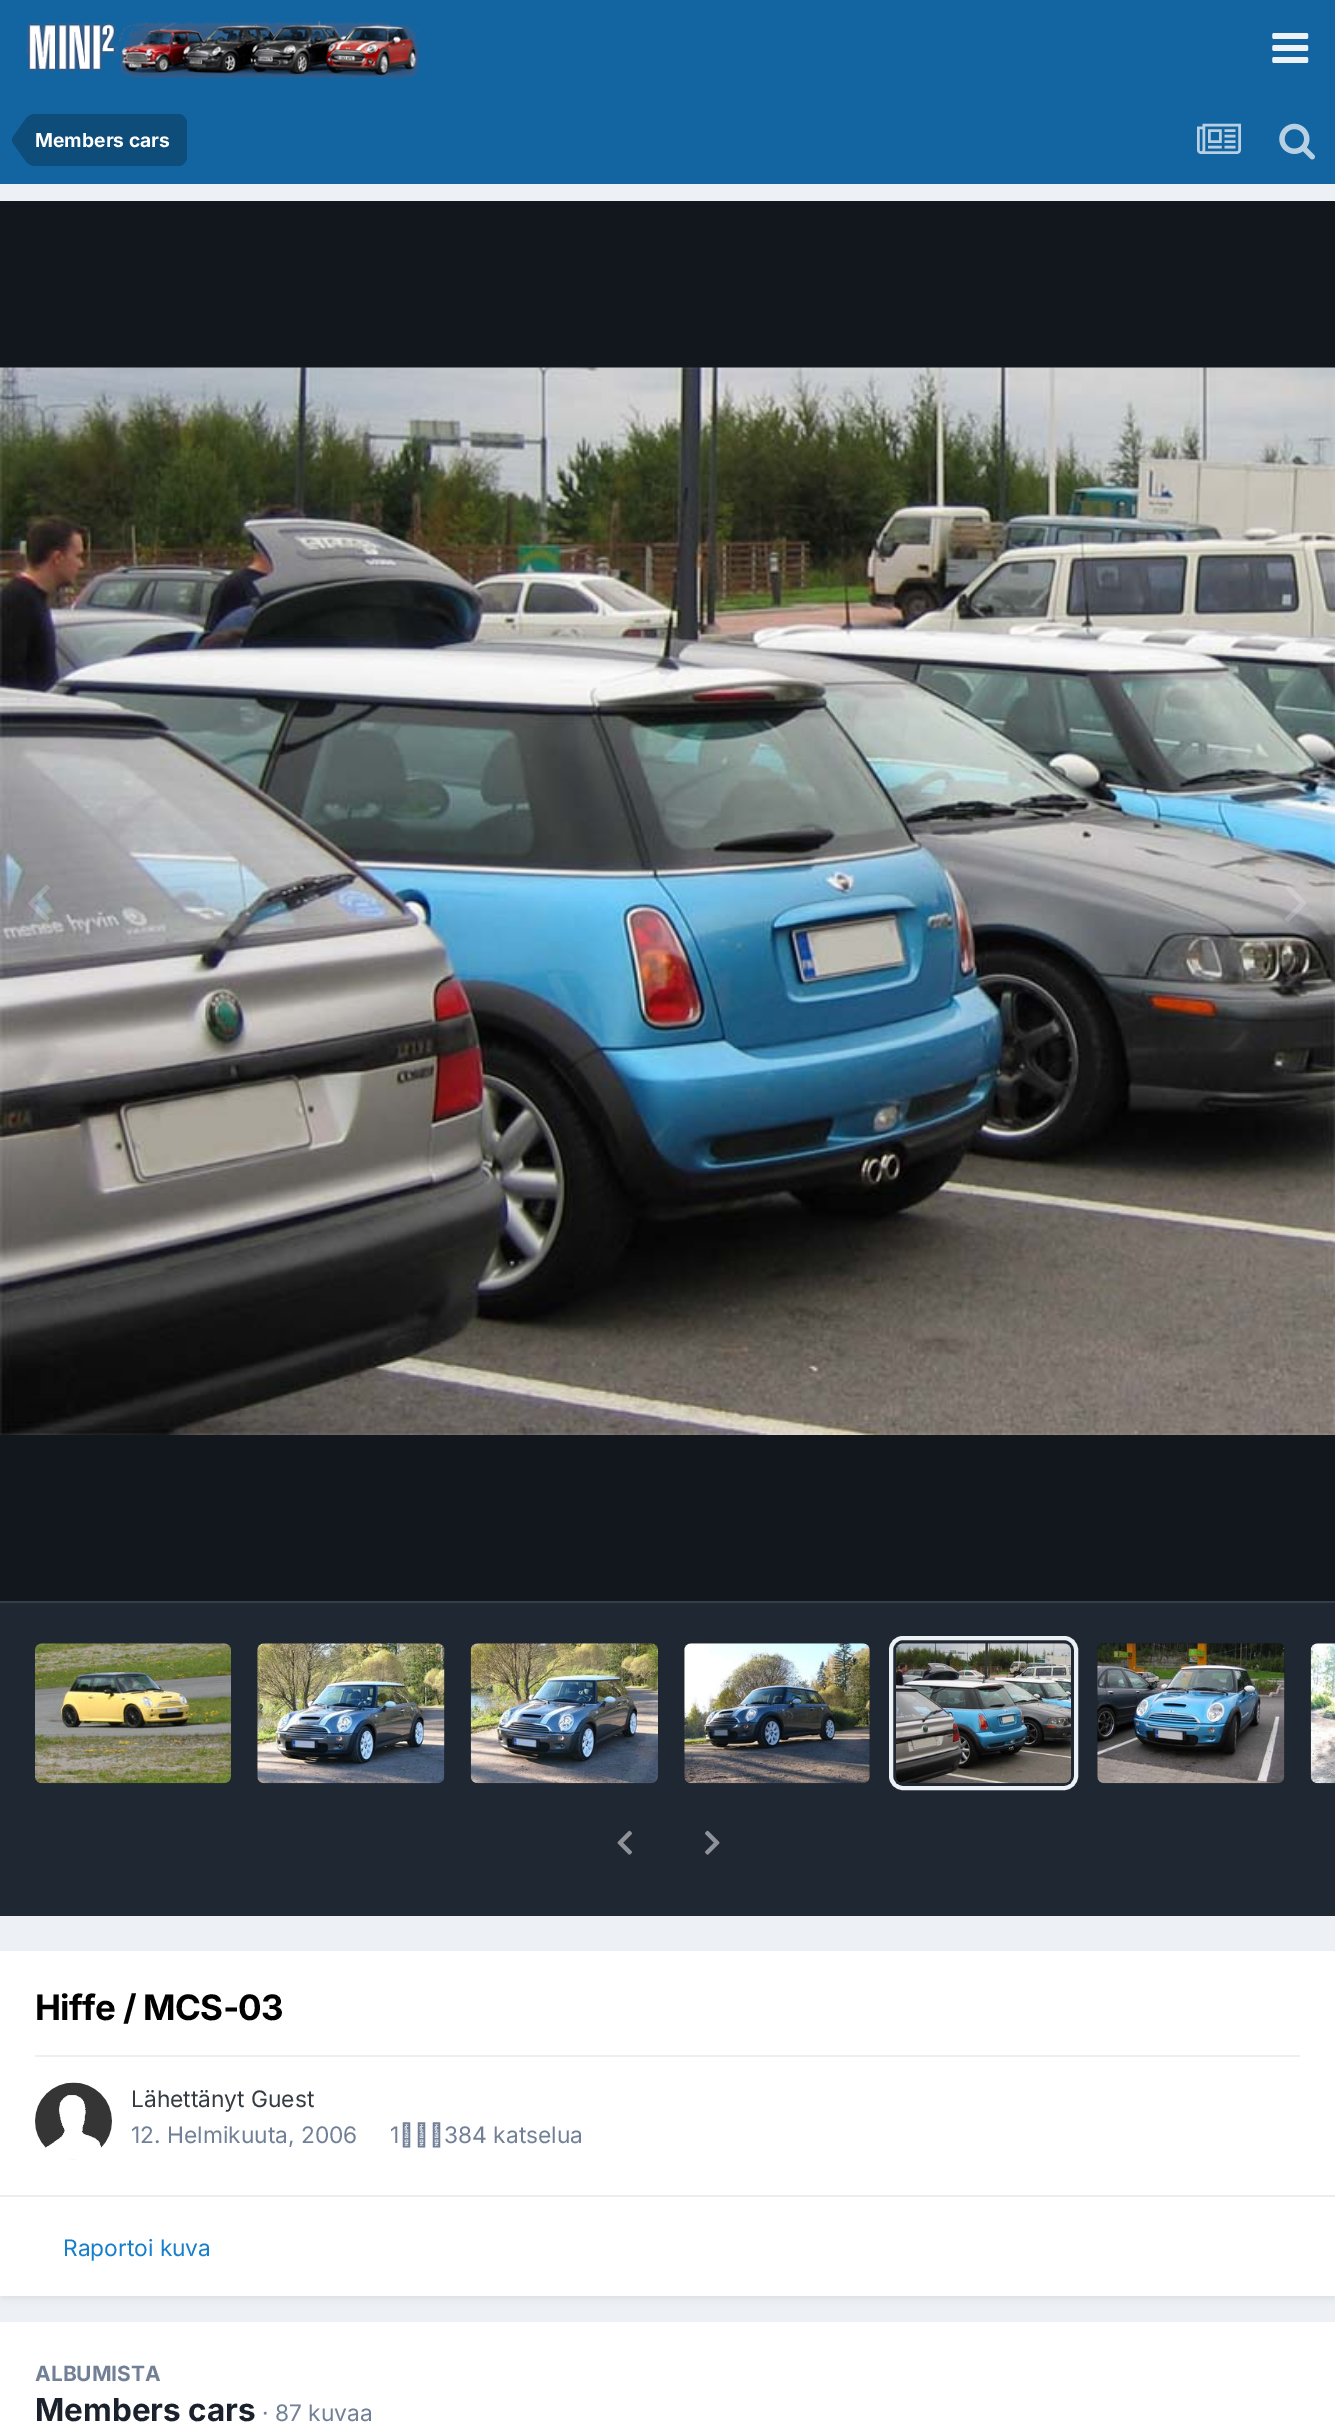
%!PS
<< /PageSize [1335 2423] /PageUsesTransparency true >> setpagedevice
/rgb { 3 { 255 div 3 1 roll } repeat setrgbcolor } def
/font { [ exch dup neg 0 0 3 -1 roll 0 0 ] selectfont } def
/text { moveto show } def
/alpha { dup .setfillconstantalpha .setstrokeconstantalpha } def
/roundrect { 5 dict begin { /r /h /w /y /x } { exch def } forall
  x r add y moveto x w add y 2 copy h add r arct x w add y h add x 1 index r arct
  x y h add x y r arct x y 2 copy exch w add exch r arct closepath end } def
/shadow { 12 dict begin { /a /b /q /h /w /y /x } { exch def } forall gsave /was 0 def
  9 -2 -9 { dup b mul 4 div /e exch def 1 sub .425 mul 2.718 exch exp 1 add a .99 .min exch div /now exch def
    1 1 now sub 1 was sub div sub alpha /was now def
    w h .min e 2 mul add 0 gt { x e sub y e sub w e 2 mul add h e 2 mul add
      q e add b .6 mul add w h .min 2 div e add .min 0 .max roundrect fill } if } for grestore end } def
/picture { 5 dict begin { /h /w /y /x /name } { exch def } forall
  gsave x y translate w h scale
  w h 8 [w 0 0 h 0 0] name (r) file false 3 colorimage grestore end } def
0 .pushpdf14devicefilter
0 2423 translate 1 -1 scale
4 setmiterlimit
237 240 244 rgb
0 0 1335 2423 rectfill
18 101 161 rgb
0 0 1335 184 rectfill
(img_01.rgb) 26 20 394 58 picture
(img_02.rgb) 1272 33 37 30 picture
14 76 121 rgb
35 114 moveto 143 0 rlineto 5 0 9 4 9 9 rcurveto 0 34 rlineto 0 5 -4 9 -9 9 rcurveto -143 0 rlineto closepath fill
35 140 moveto 0 26 rlineto -4 0 -7.5 -2 -10 -6 rcurveto -12.5 -17.5 rlineto -0.5 -2.5 rlineto closepath 35 140 moveto -23 0 rlineto 0.5 -2.5 rlineto 12.5 -17.5 rlineto 2.5 -4 6 -6 10 -6 rcurveto closepath fill
(img_03.rgb) 1197 123 44 31 picture
(img_04.rgb) 1279 123 36 37 picture
18 22 29 rgb
0 201 1335 1400 rectfill
(img_05.rgb) 0 367 1335 1068 picture
(img_06.rgb) 28 884 22 38 picture
(img_07.rgb) 1285 884 22 38 picture
31 39 50 rgb
0 1603 1335 313 rectfill
53 61 71 rgb
0 1601 1335 2 rectfill
20 20 20 rgb
35 1643 196 140 7 roundrect fill
0.3 alpha
45 55 72 rgb
35 1643 196 140 7 roundrect fill
1 alpha
(img_08.rgb) 35 1643 196 141 picture
20 20 20 rgb
257 1643 188 140 7 roundrect fill
0.3 alpha
45 55 72 rgb
257 1643 188 140 7 roundrect fill
1 alpha
(img_09.rgb) 257 1643 188 141 picture
20 20 20 rgb
471 1643 187 140 7 roundrect fill
0.3 alpha
45 55 72 rgb
471 1643 187 140 7 roundrect fill
1 alpha
(img_10.rgb) 470 1643 188 141 picture
20 20 20 rgb
684 1643 186 140 7 roundrect fill
0.3 alpha
45 55 72 rgb
684 1643 186 140 7 roundrect fill
1 alpha
(img_11.rgb) 684 1643 186 141 picture
20 20 20 rgb
896 1643 175 140 7 roundrect fill
0.3 alpha
45 55 72 rgb
896 1643 175 140 7 roundrect fill
1 alpha
237 242 247 rgb
4 setlinewidth
891 1638 185 150 12 roundrect stroke
(img_12.rgb) 896 1643 175 141 picture
20 20 20 rgb
1097 1643 188 140 7 roundrect fill
0.3 alpha
45 55 72 rgb
1097 1643 188 140 7 roundrect fill
1 alpha
(img_13.rgb) 1097 1643 188 141 picture
20 20 20 rgb
1318 1643 moveto 17 0 rlineto 0 140 rlineto -17 0 rlineto -4 0 -7 -3 -7 -7 rcurveto 0 -126 rlineto 0 -4 3 -7 7 -7 rcurveto closepath fill
0.3 alpha
45 55 72 rgb
1318 1643 moveto 17 0 rlineto 0 140 rlineto -17 0 rlineto -4 0 -7 -3 -7 -7 rcurveto 0 -126 rlineto 0 -4 3 -7 7 -7 rcurveto closepath fill
1 alpha
(img_14.rgb) 1310 1643 25 141 picture
(img_15.rgb) 617 1830 15 25 picture
(img_16.rgb) 705 1830 15 25 picture
2 1957 1332 341 0 3.5 0.1 shadow
255 255 255 rgb
0 1951 1335 345 rectfill
239 239 240 rgb
35 2055 1265 2 rectfill
(img_17.rgb) 35 2082 77 78 picture
235 236 236 rgb
0 2195 1335 2 rectfill
255 255 255 rgb
0 2322 1335 101 rectfill
/Inter-Bold 19.25 font
(Members cars) 35 147 text
/Inter-Bold 35 font
0 0 0 rgb
35 2020 moveto -0.75 0 (Hiffe / MCS-03) ashow
/Inter-Regular 22.75 font
53 60 65 rgb
(Lähettänyt Guest) 131 2107 text
113 128 150 rgb
(12. Helmikuuta, 2006) 131 2143 text
(1 384 katselua) 390 2143 text
23 126 201 rgb
(Raportoi kuva) 63 2256 text
/Inter-Bold 21 font
113 128 150 rgb
(ALBUMISTA) 35 2381 text
/Inter-Bold 31.5 font
26 32 44 rgb
(Members cars) 35 2421 text
/Inter-Regular 22.75 font
113 128 150 rgb
(· 87 kuvaa) 262 2421 text
.poppdf14devicefilter showpage
